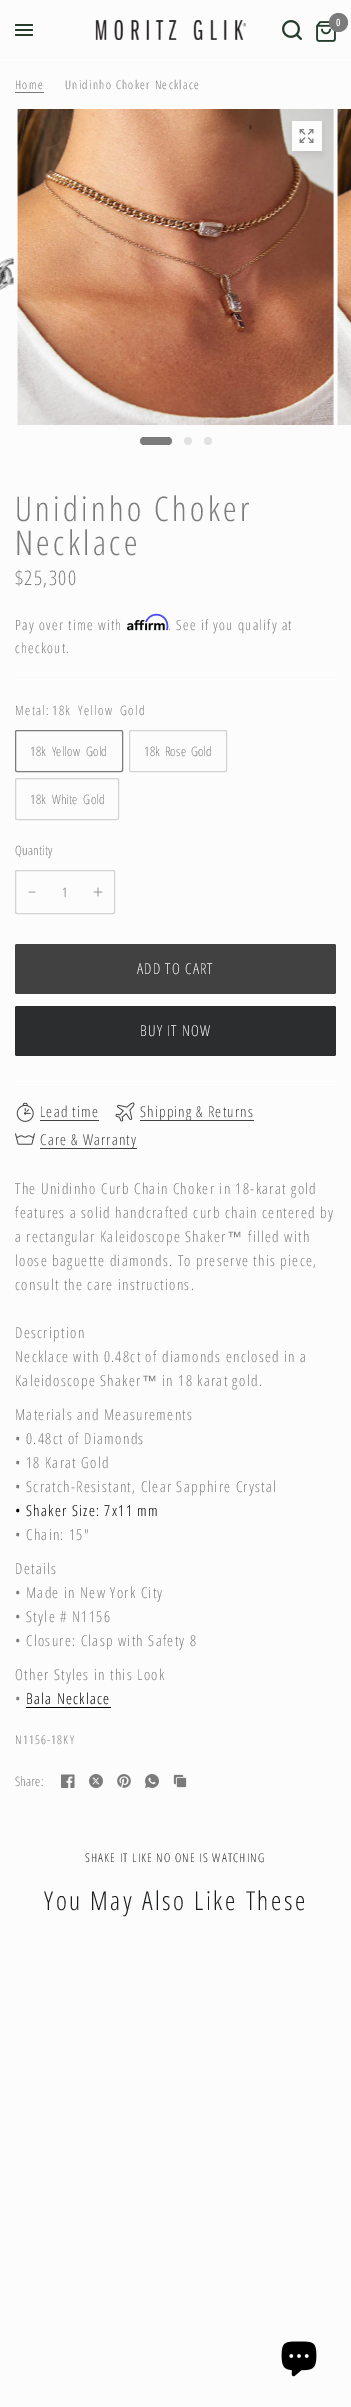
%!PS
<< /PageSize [351 2407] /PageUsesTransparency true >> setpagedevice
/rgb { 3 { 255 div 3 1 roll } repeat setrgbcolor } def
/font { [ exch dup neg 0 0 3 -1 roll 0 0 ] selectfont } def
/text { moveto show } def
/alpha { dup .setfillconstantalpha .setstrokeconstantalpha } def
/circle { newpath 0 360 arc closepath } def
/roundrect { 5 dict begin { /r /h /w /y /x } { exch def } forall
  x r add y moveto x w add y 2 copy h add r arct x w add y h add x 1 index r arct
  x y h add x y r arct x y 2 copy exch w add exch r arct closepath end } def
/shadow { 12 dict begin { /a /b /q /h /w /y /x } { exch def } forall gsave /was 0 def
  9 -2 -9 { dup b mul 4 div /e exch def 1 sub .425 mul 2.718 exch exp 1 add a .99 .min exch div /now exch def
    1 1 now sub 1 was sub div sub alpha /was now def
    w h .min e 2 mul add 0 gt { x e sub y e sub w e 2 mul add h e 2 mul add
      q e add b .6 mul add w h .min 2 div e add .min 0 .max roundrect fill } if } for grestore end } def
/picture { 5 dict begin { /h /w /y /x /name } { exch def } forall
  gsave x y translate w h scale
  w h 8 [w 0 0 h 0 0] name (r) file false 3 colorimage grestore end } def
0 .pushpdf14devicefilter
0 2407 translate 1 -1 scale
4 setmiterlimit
252 252 252 rgb
0 0 351 2407 rectfill
38 61 45 rgb
15 24 18 2 1 roundrect fill
15 29 18 2 1 roundrect fill
15 34 18 2 1 roundrect fill
(img_01.rgb) 95 20 151 20 picture
(img_02.rgb) 282 20 20 20 picture
(img_03.rgb) 316 21 20 21 picture
123 123 123 rgb
338.5 22.5 9.5 circle fill
255 255 255 rgb
0 59 351 1 rectfill
123 123 123 rgb
15 92 29 1 rectfill
(img_04.rgb) 0 257 14 33 picture
(img_05.rgb) 17 109 317 316 picture
0 0 0 rgb
292 125 30 30 1 3 0.08 shadow
252 252 252 rgb
292 121 30 30 1 roundrect fill
(img_06.rgb) 299 129 15 14 picture
(img_07.rgb) 337 109 14 316 picture
123 123 123 rgb
140 437 32 8 4 roundrect fill
226 226 226 rgb
188 441 4 circle fill
208 441 4 circle fill
(img_09.rgb) 127 619 38 12 picture
255 255 255 rgb
15 679 321 1 rectfill
123 123 123 rgb
15.5 730.5 107 41 1.5 roundrect stroke
211 211 211 rgb
129.5 730.5 97 41 1.5 roundrect stroke
15.5 778.5 103 41 1.5 roundrect stroke
15.5 870.5 99 43 1.5 roundrect stroke
175 175 175 rgb
1 setlinecap
1 setlinejoin
29 892 moveto 6 0 rlineto stroke
(img_10.rgb) 93 887 10 10 picture
65 65 65 rgb
15 944 321 50 2 roundrect fill
44 45 46 rgb
15 1006 321 50 2 roundrect fill
255 255 255 rgb
15 1081 321 1 rectfill
(img_11.rgb) 16 1102 18 20 picture
65 65 65 rgb
40 1120 59 1 rectfill
(img_12.rgb) 115 1102 20 20 picture
140 1120 114 1 rectfill
(img_13.rgb) 15 1133 20 12 picture
40 1148 97 1 rectfill
0 0 0 rgb
26 1707 85 1 rectfill
(img_14.rgb) 61 1774 14 14 picture
(img_15.rgb) 89 1774 14 14 picture
(img_16.rgb) 117 1774 14 14 picture
(img_17.rgb) 145 1774 14 14 picture
(img_18.rgb) 173 1774 14 14 picture
(img_19.rgb) 281 2341 36 36 picture
/OpenSansCondensed-SemiBold 10 font
255 255 255 rgb
336 26 moveto 1.35 0 (0) ashow
/OpenSansCondensed-Light 12 font
123 123 123 rgb
15 89 moveto 1.35 0 (Home) ashow
65 89 moveto 1.35 0 (Unidinho Choker Necklace) ashow
/OpenSansCondensed-Light 34 font
15 521 moveto 3.4 0 (Unidinho Choker) ashow
15 555 moveto 3.4 0 (Necklace) ashow
/OpenSansCondensed-Light 20 font
15 585 moveto 1.35 0 ($25,300) ashow
/OpenSansCondensed-Light 14 font
15 630 moveto 1.35 0 (Pay over time with) ashow
168 630 moveto 1.35 0 (. See if you qualify at) ashow
(img_08.rgb) 145 613 24 18 picture
15 653 moveto 1.35 0 (checkout.) ashow
/OpenSansCondensed-Light 13 font
15 715 moveto 1.35 0 (Metal:) ashow
52 715 moveto 3 0 32 1.35 0 (18k Yellow Gold) awidthshow
30 756 moveto 3 0 32 0.25 0 (18k Yellow Gold) awidthshow
144 756 moveto 2 0 32 0.25 0 (18k Rose Gold) awidthshow
30 804 moveto 3 0 32 0.25 0 (18k White Gold) awidthshow
15 855 moveto 0.25 0 (Quantity) ashow
(1) 62 897 text
/OpenSansCondensed-Light 15 font
255 255 255 rgb
137 974 moveto 1.2 0 (ADD TO CART) ashow
140 1036 moveto 1.2 0 (BUY IT NOW) ashow
65 65 65 rgb
40 1117 moveto 1.2 0 (Lead time) ashow
140 1117 moveto 1.2 0 (Shipping & Returns) ashow
40 1145 moveto 1.2 0 (Care & Warranty) ashow
123 123 123 rgb
15 1194 moveto 1.35 0 (The Unidinho Curb Chain Choker in 18-karat gold) ashow
15 1218 moveto 1.35 0 (features a solid handcrafted curb chain centered by) ashow
15 1242 moveto 1.35 0 (a rectangular Kaleidoscope Shaker) ashow
/LiberationSans-Regular 15 font
227 1242 moveto 1.35 0 (™) ashow
/OpenSansCondensed-Light 15 font
248 1242 moveto 1.35 0 (filled with) ashow
15 1266 moveto 1.35 0 (loose baguette diamonds. To preserve this piece,) ashow
15 1290 moveto 1.35 0 (consult the care instructions.) ashow
15 1338 moveto 1.35 0 (Description) ashow
15 1362 moveto 1.35 0 (Necklace with 0.48ct of diamonds enclosed in a) ashow
15 1386 moveto 1.35 0 (Kaleidoscope Shaker) ashow
/LiberationSans-Regular 15 font
142 1386 moveto 1.35 0 (™) ashow
/OpenSansCondensed-Light 15 font
162 1386 moveto 1.35 0 (in 18 karat gold.) ashow
15 1420 moveto 1.35 0 (Materials and Measurements) ashow
15 1444 moveto 1.35 0 (• 0.48ct of Diamonds) ashow
15 1468 moveto 1.35 0 (• 18 Karat Gold) ashow
15 1492 moveto 1.35 0 (• Scratch-Resistant, Clear Sapphire Crystal) ashow
0 0 0 rgb
15 1516 moveto 1.35 0 (• Shaker Size: 7x11 mm) ashow
123 123 123 rgb
15 1540 moveto 1.35 0 (• Chain: 15") ashow
15 1574 moveto 1.35 0 (Details) ashow
15 1598 moveto 1.35 0 (• Made in New York City) ashow
15 1622 moveto 1.35 0 (• Style # N1156) ashow
15 1646 moveto 1.35 0 (• Closure: Clasp with Safety 8) ashow
15 1680 moveto 1.35 0 (Other Styles in this Look) ashow
15 1704 moveto 1.35 0 (•) ashow
0 0 0 rgb
26 1704 moveto 1.35 0 (Bala Necklace) ashow
/OpenSansCondensed-Light 12 font
123 123 123 rgb
15 1744 moveto 1.2 0 (N1156-18KY) ashow
/OpenSansCondensed-Light 13 font
15 1786 moveto 0.25 0 (Share:) ashow
/OpenSansCondensed-Light 12 font
44 45 46 rgb
85 1862 moveto 1.2 0 (SHAKE IT LIKE NO ONE IS WATCHING) ashow
/OpenSansCondensed-Light 26 font
26 28 29 rgb
44 1910 moveto 2.6 0 (You May Also Like These) ashow
.poppdf14devicefilter showpage
